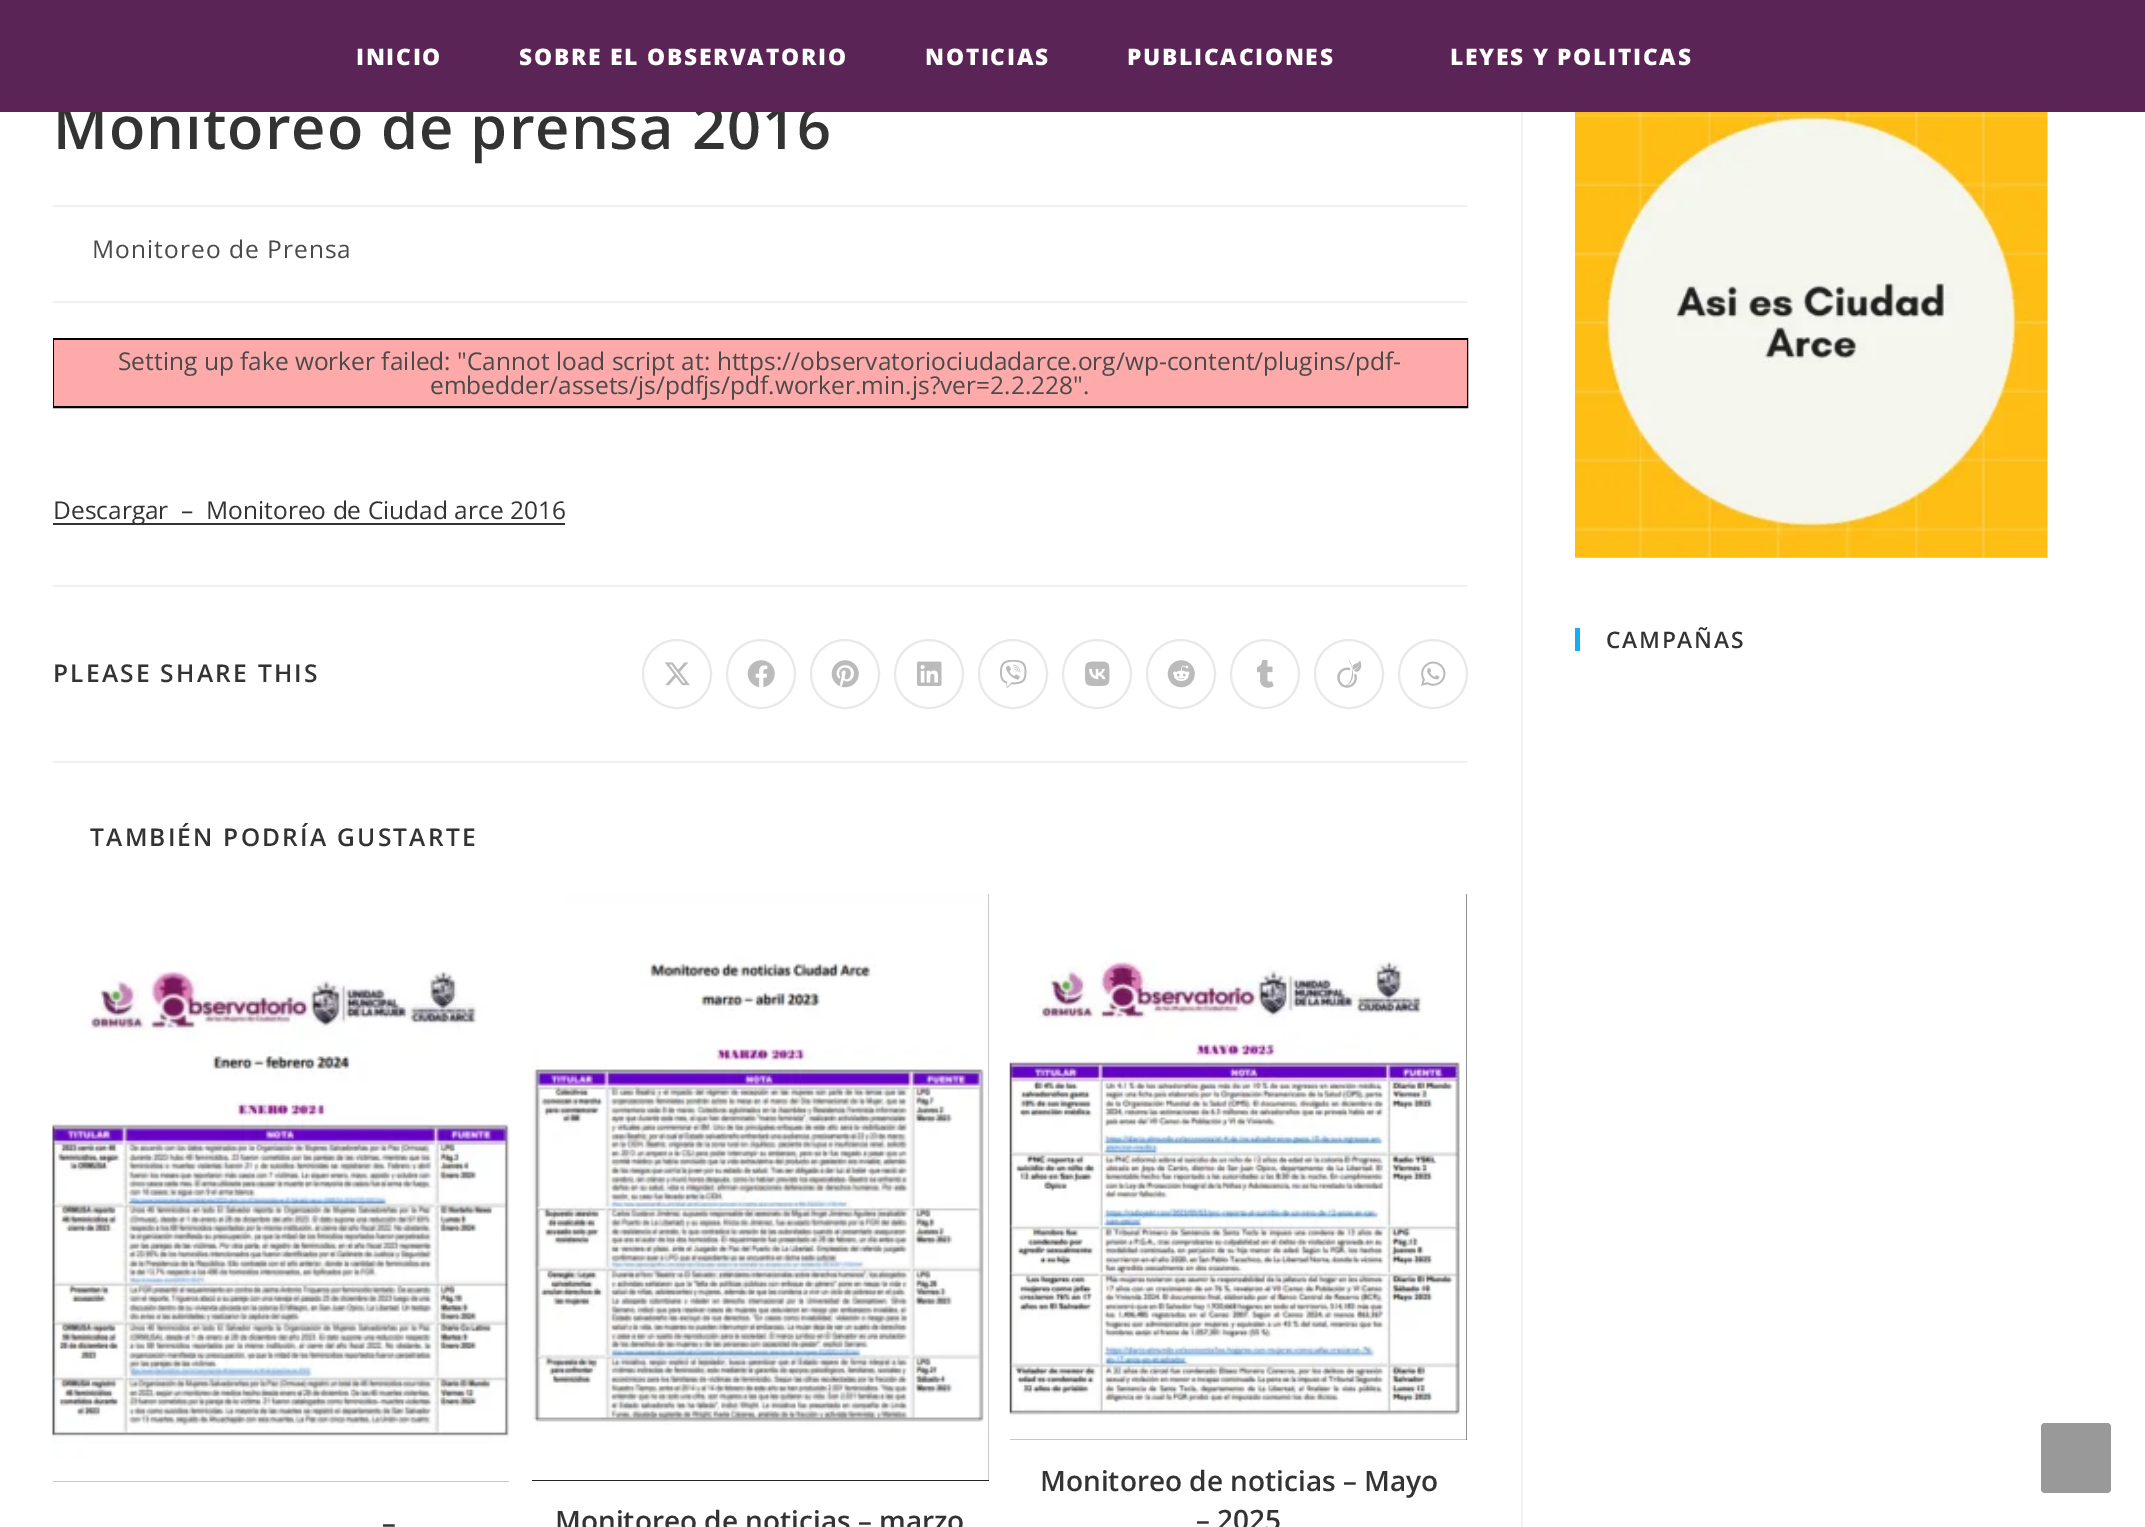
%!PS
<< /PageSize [2145 1527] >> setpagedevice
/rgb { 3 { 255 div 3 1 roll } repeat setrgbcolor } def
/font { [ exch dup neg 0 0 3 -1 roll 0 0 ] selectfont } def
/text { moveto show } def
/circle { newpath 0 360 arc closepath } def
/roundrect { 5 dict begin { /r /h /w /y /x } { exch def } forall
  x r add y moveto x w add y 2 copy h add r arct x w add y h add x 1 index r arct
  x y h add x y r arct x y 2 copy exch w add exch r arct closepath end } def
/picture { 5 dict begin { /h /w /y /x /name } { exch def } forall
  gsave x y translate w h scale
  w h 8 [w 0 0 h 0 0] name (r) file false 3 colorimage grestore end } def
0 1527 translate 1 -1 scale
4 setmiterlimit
255 255 255 rgb
0 0 2145 1527 rectfill
241 241 241 rgb
1521 112 2 1415 rectfill
53 205 1415 2 rectfill
53 301 1415 2 rectfill
0 0 0 rgb
2 setlinewidth
54 339 1413 68 rectstroke
255 170 170 rgb
54 340 1413 66 rectfill
51 51 51 rgb
53 523 512 2 rectfill
241 241 241 rgb
53 585 1415 2 rectfill
233 233 233 rgb
677 674 34 circle stroke
(img_01.rgb) 665 662 25 24 picture
761 674 34 circle stroke
(img_02.rgb) 747 660 28 27 picture
845 674 34 circle stroke
(img_03.rgb) 831 660 28 28 picture
929 674 34 circle stroke
(img_04.rgb) 917 661 25 25 picture
1013 674 34 circle stroke
(img_05.rgb) 1000 660 27 28 picture
1097 674 34 circle stroke
(img_06.rgb) 1085 661 25 25 picture
1181 674 34 circle stroke
(img_07.rgb) 1167 660 28 28 picture
1265 674 34 circle stroke
(img_08.rgb) 1256 660 18 28 picture
1349 674 34 circle stroke
(img_09.rgb) 1337 660 25 28 picture
1433 674 34 circle stroke
(img_10.rgb) 1421 661 25 25 picture
241 241 241 rgb
53 761 1415 2 rectfill
(img_11.rgb) 52 894 458 588 picture
34 34 34 rgb
532 894 457 587 rectfill
(img_12.rgb) 532 894 457 586 picture
1010 894 457 546 rectfill
(img_13.rgb) 1009 894 458 546 picture
(img_14.rgb) 1575 112 473 446 picture
19 175 240 rgb
1575 628 5 23 rectfill
153 153 153 rgb
2041 1423 70 70 4 roundrect fill
/OpenSans-SemiBold 59.5 font
51 51 51 rgb
53 149 moveto 1.05 0 (Monitoreo de prensa 2016) ashow
91 36 86 rgb
0 0 2145 112 rectfill
/OpenSans-ExtraBold 22.75 font
255 255 255 rgb
1450 65 moveto 1.75 0 (LEYES Y POLITICAS) ashow
1127 65 moveto 1.75 0 (PUBLICACIONES) ashow
925 65 moveto 1.75 0 (NOTICIAS) ashow
519 65 moveto 1.75 0 (SOBRE EL OBSERVATORIO) ashow
356 65 moveto 1.75 0 (INICIO) ashow
/OpenSans-Regular 24.5 font
74 74 74 rgb
92 258 moveto 1.05 0 (Monitoreo de Prensa) ashow
(Setting up fake worker failed: "Cannot load script at: https://observatoriociudadarce.org/wp-content/plugins/pdf-) 118 370 text
(embedder/assets/js/pdfjs/pdf.worker.min.js?ver=2.2.228".) 430 394 text
51 51 51 rgb
(Descargar  –  Monitoreo de Ciudad arce 2016) 53 519 text
/OpenSans-SemiBold 24.5 font
53 682 moveto 2.25 0 (PLEASE SHARE THIS) ashow
90 846 moveto 2.25 0 (TAMBIÉN PODRÍA GUSTARTE) ashow
/OpenSans-SemiBold 28 font
(–) 382 1533 text
(Monitoreo de noticias – marzo) 555 1531 text
(Monitoreo de noticias – Mayo) 1040 1491 text
(– 2025) 1196 1530 text
/OpenSans-SemiBold 22.75 font
1606 648 moveto 1.75 0 (CAMPAÑAS) ashow
showpage
